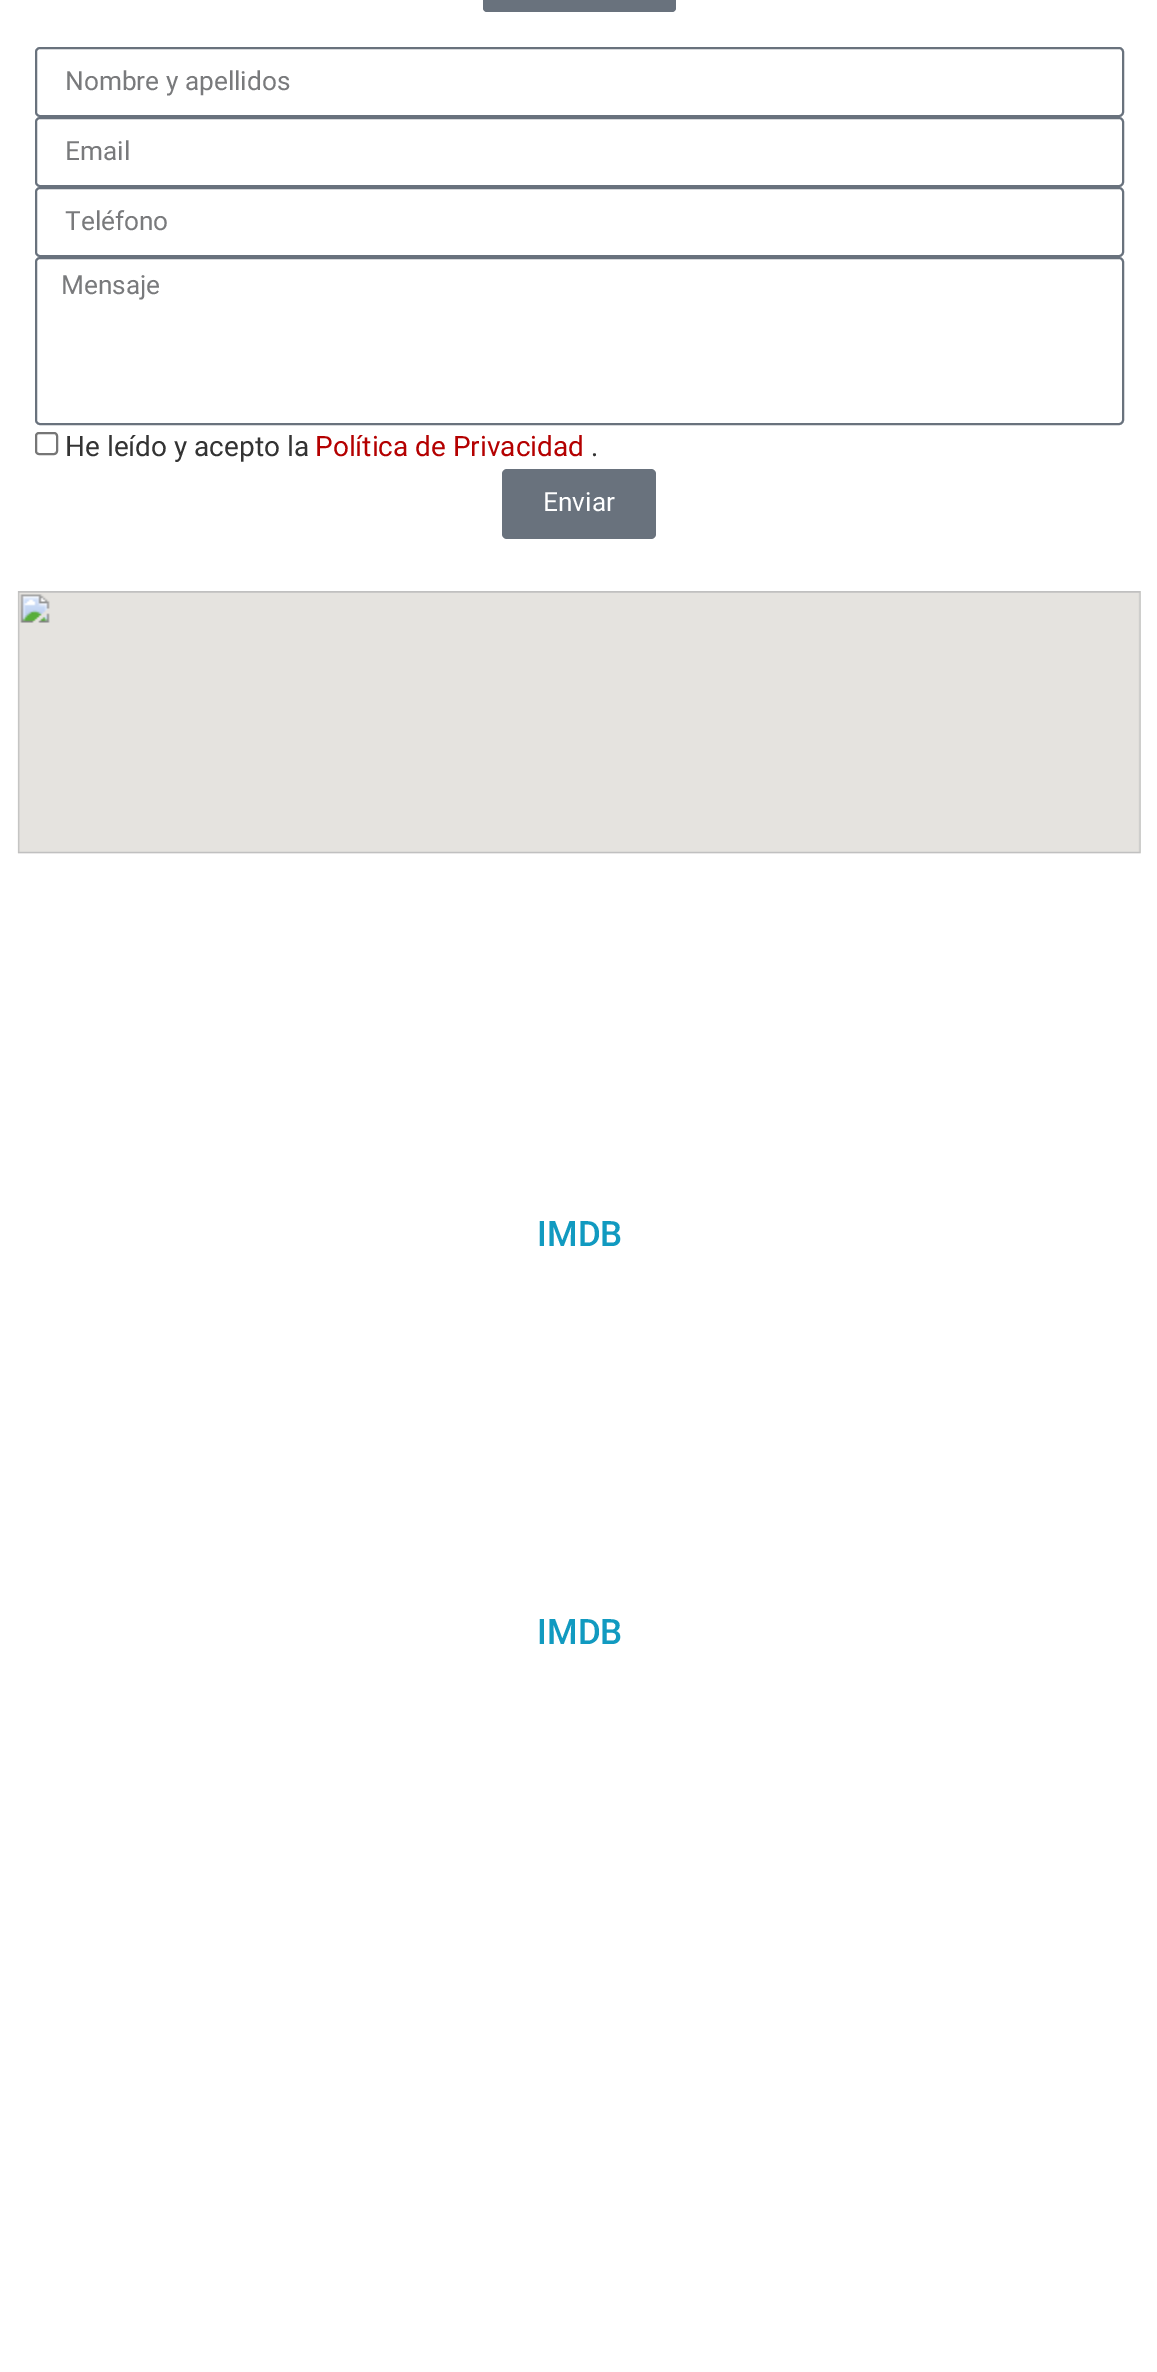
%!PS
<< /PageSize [1157 2372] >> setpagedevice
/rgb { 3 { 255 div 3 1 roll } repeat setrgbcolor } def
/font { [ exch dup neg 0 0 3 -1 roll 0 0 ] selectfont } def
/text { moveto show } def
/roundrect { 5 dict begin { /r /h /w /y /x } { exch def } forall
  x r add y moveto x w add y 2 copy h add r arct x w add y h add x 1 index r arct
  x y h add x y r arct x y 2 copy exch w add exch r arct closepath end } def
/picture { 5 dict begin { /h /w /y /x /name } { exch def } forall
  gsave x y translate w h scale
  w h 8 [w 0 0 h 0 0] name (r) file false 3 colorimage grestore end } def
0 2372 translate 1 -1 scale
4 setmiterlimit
255 255 255 rgb
0 0 1157 2372 rectfill
105 114 125 rgb
483 -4 193 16 4 roundrect fill
2 setlinewidth
36 48 1087 68 4 roundrect stroke
36 118 1087 68 4 roundrect stroke
36 188 1087 68 4 roundrect stroke
36 258 1087 166 4 roundrect stroke
118 118 118 rgb
36 433 21 21 3 roundrect stroke
105 114 125 rgb
502 469 154 70 5 roundrect fill
(img_01.rgb) 17 591 1124 263 picture
/Roboto-Regular 26.25 font
121 122 124 rgb
(Nombre y apellidos) 65 90 text
(Email) 65 160 text
(Teléfono) 65 230 text
(Mensaje) 61 294 text
/Roboto-Regular 28 font
51 51 51 rgb
(He leído y acepto la) 65 456 text
180 0 0 rgb
(Política de Privacidad) 315 456 text
51 51 51 rgb
(.) 591 456 text
/Roboto-Regular 26.25 font
255 255 255 rgb
(Enviar) 543 511 text
/Roboto-Medium 35 font
17 154 192 rgb
(IMDB) 537 1246 text
(IMDB) 537 1644 text
showpage
